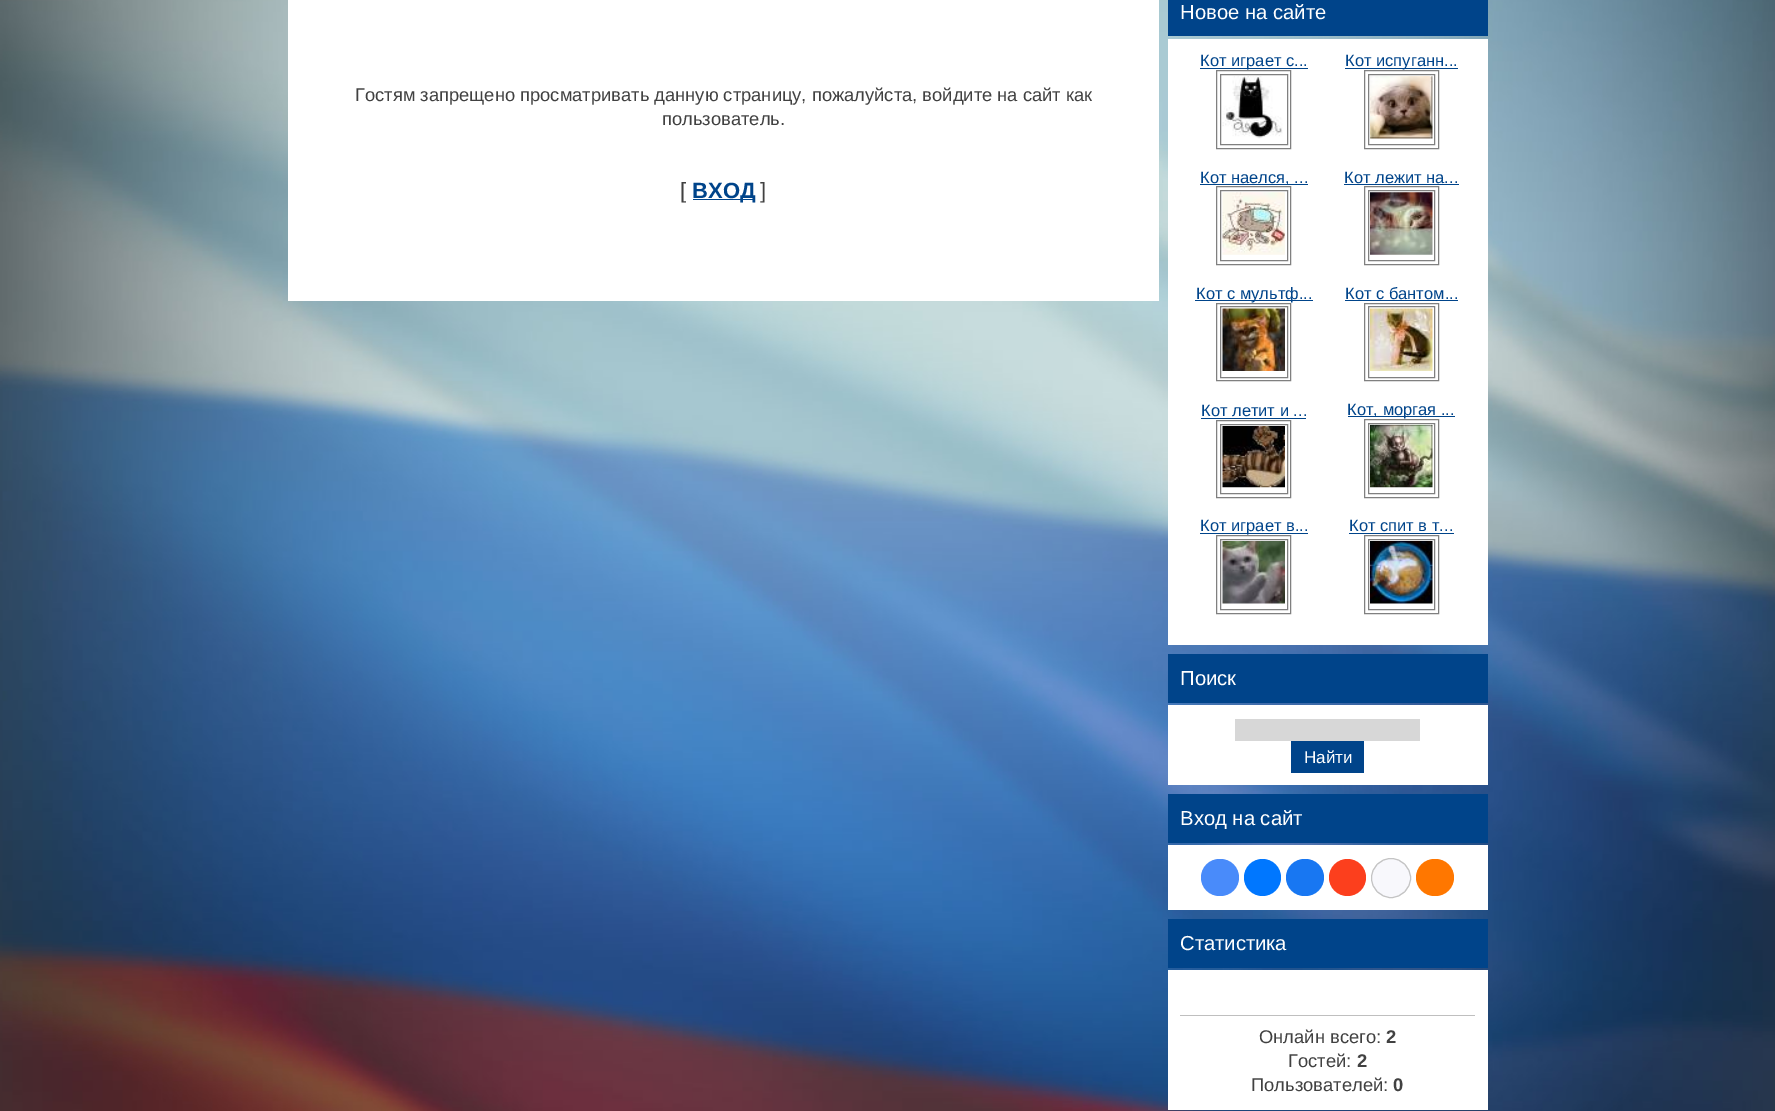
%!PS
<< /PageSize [1775 1111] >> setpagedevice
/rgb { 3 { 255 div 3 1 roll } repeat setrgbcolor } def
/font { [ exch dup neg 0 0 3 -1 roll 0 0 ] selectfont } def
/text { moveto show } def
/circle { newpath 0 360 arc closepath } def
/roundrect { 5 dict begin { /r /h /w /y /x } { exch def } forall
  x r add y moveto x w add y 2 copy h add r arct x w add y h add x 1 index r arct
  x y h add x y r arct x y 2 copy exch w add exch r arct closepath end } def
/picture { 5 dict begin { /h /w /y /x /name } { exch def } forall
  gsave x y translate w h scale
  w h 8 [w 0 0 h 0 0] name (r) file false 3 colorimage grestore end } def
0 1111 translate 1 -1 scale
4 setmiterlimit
255 255 255 rgb
0 0 1775 1111 rectfill
(img_01.rgb) 0 0 1775 1111 picture
288 0 871 301 rectfill
0 68 138 rgb
693 199 61 1 rectfill
1168 0 320 36 rectfill
255 255 255 rgb
1168 39 320 606 rectfill
0 68 138 rgb
1200 68 108 1 rectfill
128 128 128 rgb
1216.5 70.5 74 78 rectstroke
1220.5 74.5 67 70 rectstroke
(img_02.rgb) 1222 76 61 63 picture
0 68 138 rgb
1345 68 113 1 rectfill
128 128 128 rgb
1364.5 70.5 74 78 rectstroke
1368.5 74.5 66 70 rectstroke
(img_03.rgb) 1370 76 63 63 picture
0 68 138 rgb
1200 184 108 1 rectfill
128 128 128 rgb
1216.5 186.5 74 78 rectstroke
1220.5 190.5 67 70 rectstroke
(img_04.rgb) 1222 192 63 63 picture
0 68 138 rgb
1344 184 115 1 rectfill
128 128 128 rgb
1364.5 186.5 74 78 rectstroke
1368.5 190.5 66 70 rectstroke
(img_05.rgb) 1370 192 63 63 picture
0 68 138 rgb
1195 300 118 1 rectfill
128 128 128 rgb
1216.5 303.5 74 77 rectstroke
1220.5 306.5 67 71 rectstroke
(img_06.rgb) 1222 308 63 63 picture
0 68 138 rgb
1345 300 113 1 rectfill
128 128 128 rgb
1364.5 303.5 74 77 rectstroke
1368.5 306.5 66 71 rectstroke
(img_07.rgb) 1370 308 63 63 picture
0 68 138 rgb
1201 418 105 1 rectfill
128 128 128 rgb
1216.5 420.5 74 77 rectstroke
1220.5 424.5 67 69 rectstroke
(img_08.rgb) 1222 426 63 62 picture
0 68 138 rgb
1348 416 107 1 rectfill
128 128 128 rgb
1364.5 419.5 74 78 rectstroke
1368.5 423.5 66 70 rectstroke
(img_09.rgb) 1370 424 63 64 picture
0 68 138 rgb
1200 533 108 1 rectfill
128 128 128 rgb
1216.5 535.5 74 78 rectstroke
1220.5 539.5 67 70 rectstroke
(img_10.rgb) 1222 541 63 63 picture
0 68 138 rgb
1349 533 105 1 rectfill
128 128 128 rgb
1364.5 535.5 74 78 rectstroke
1368.5 539.5 66 70 rectstroke
(img_11.rgb) 1370 541 63 63 picture
0 68 138 rgb
1168 654 320 49 rectfill
255 255 255 rgb
1168 705 320 80 rectfill
215 215 215 rgb
1235 719 185 22 rectfill
0 68 138 rgb
1291 741 73 32 rectfill
1168 794 320 49 rectfill
255 255 255 rgb
1168 845 320 65 rectfill
73 139 250 rgb
1201 859 38 37 18.5 roundrect fill
0 119 255 rgb
1262.5 877.5 18.5 circle fill
24 119 242 rgb
1286 859 38 37 18.5 roundrect fill
252 63 29 rgb
1347.5 877.5 18.5 circle fill
248 248 252 rgb
1391 878 19.5 circle gsave fill grestore
196 196 196 rgb
stroke
255 119 0 rgb
1416 859 38 37 18.5 roundrect fill
0 68 138 rgb
1168 919 320 49 rectfill
255 255 255 rgb
1168 970 320 140 rectfill
191 191 191 rgb
1180 1015 295 1 rectfill
/LiberationSans-Regular 18.35 font
65 65 65 rgb
(Гостям запрещено просматривать данную страницу, пожалуйста, войдите на сайт как) 355 101 text
(пользователь.) 662 125 text
/LiberationSans-Regular 22 font
([) 680 198 text
/LiberationSans-Bold 22 font
0 68 138 rgb
(ВХОД) 692 198 text
/LiberationSans-Regular 22 font
65 65 65 rgb
(]) 760 198 text
/LiberationSans-Regular 20.25 font
255 255 255 rgb
(Новое на сайте) 1180 19 text
/LiberationSans-Regular 16.5 font
0 68 138 rgb
(Кот играет с...) 1200 66 text
(Кот испуганн...) 1345 66 text
(Кот наелся, ...) 1200 183 text
(Кот лежит на...) 1344 183 text
(Кот с мультф...) 1196 299 text
(Кот с бантом...) 1345 299 text
(Кот летит и ...) 1201 416 text
(Кот, моргая ...) 1347 415 text
(Кот играет в...) 1200 531 text
(Кот спит в т...) 1349 531 text
/LiberationSans-Regular 20.25 font
255 255 255 rgb
(Поиск) 1180 685 text
/LiberationSans-Regular 17 font
(Найти) 1304 763 text
/LiberationSans-Regular 20.25 font
(Вход на сайт) 1180 825 text
(Статистика) 1180 950 text
/LiberationSans-Regular 18.35 font
65 65 65 rgb
(Онлайн всего:) 1259 1043 text
/LiberationSans-Bold 18.35 font
(2) 1386 1043 text
/LiberationSans-Regular 18.35 font
(Гостей:) 1288 1067 text
/LiberationSans-Bold 18.35 font
(2) 1357 1067 text
/LiberationSans-Regular 18.35 font
(Пользователей:) 1251 1091 text
/LiberationSans-Bold 18.35 font
(0) 1393 1091 text
showpage
